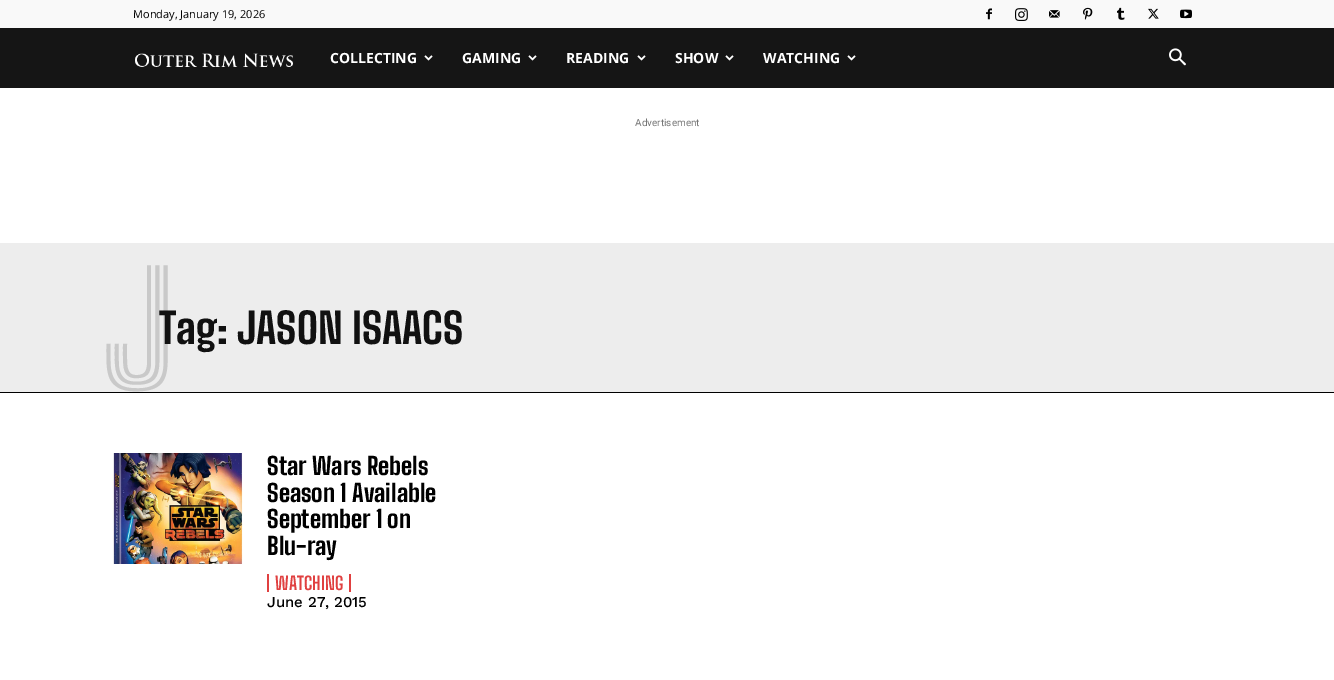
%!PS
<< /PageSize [1334 680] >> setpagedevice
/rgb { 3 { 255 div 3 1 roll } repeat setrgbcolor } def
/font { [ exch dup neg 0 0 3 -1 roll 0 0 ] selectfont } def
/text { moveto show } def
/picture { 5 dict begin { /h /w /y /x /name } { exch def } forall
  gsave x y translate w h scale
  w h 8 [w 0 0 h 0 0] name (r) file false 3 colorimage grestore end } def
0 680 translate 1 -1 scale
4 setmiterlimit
255 255 255 rgb
0 0 1334 680 rectfill
249 249 249 rgb
0 0 1334 28 rectfill
(img_01.rgb) 986 8 6 12 picture
(img_02.rgb) 1015 8 13 13 picture
(img_03.rgb) 1049 10 11 8 picture
(img_04.rgb) 1083 7 10 13 picture
(img_05.rgb) 1117 7 8 13 picture
(img_06.rgb) 1148 8 11 11 picture
(img_07.rgb) 1180 9 12 10 picture
21 21 21 rgb
0 28 1334 60 rectfill
(img_08.rgb) 135 53 158 14 picture
(img_09.rgb) 424 55 9 6 picture
(img_09.rgb) 528 55 9 6 picture
(img_09.rgb) 637 55 9 6 picture
(img_09.rgb) 725 55 9 6 picture
(img_09.rgb) 847 55 9 6 picture
(img_10.rgb) 1169 48 17 18 picture
237 237 237 rgb
0 243 1334 149 rectfill
0 0 0 rgb
0 392 1334 1 rectfill
(img_11.rgb) 112 453 131 111 picture
224 64 64 rgb
349 574 2 18 rectfill
267 574 2 18 rectfill
/OpenSans-Regular 11 font
0 0 0 rgb
(Monday, January 19, 2026) 133 18 text
/OpenSans-Bold 14 font
255 255 255 rgb
(COLLECTING) 330 63 text
(GAMING) 462 63 text
(READING) 566 63 text
(SHOW) 675 63 text
(WATCHING) 763 63 text
/Roboto-Regular 10 font
118 118 118 rgb
(Advertisement) 635 126 text
/BigShouldersInlineText-ExtraBold 156 font
201 201 201 rgb
(J) 103 390 text
/BigShouldersText-ExtraBold 42 font
17 17 17 rgb
(Tag: JASON ISAACS) 159 344 text
/BigShouldersText-ExtraBold 24 font
0 0 0 rgb
(Star Wars Rebels) 267 475 text
(Season 1 Available) 267 502 text
(September 1 on) 267 528 text
(Blu-ray) 267 555 text
/BigShouldersText-Bold 18 font
224 64 64 rgb
(WATCHING) 275 590 text
/WorkSans-Medium 15 font
0 0 0 rgb
(June 27, 2015) 267 607 text
showpage
